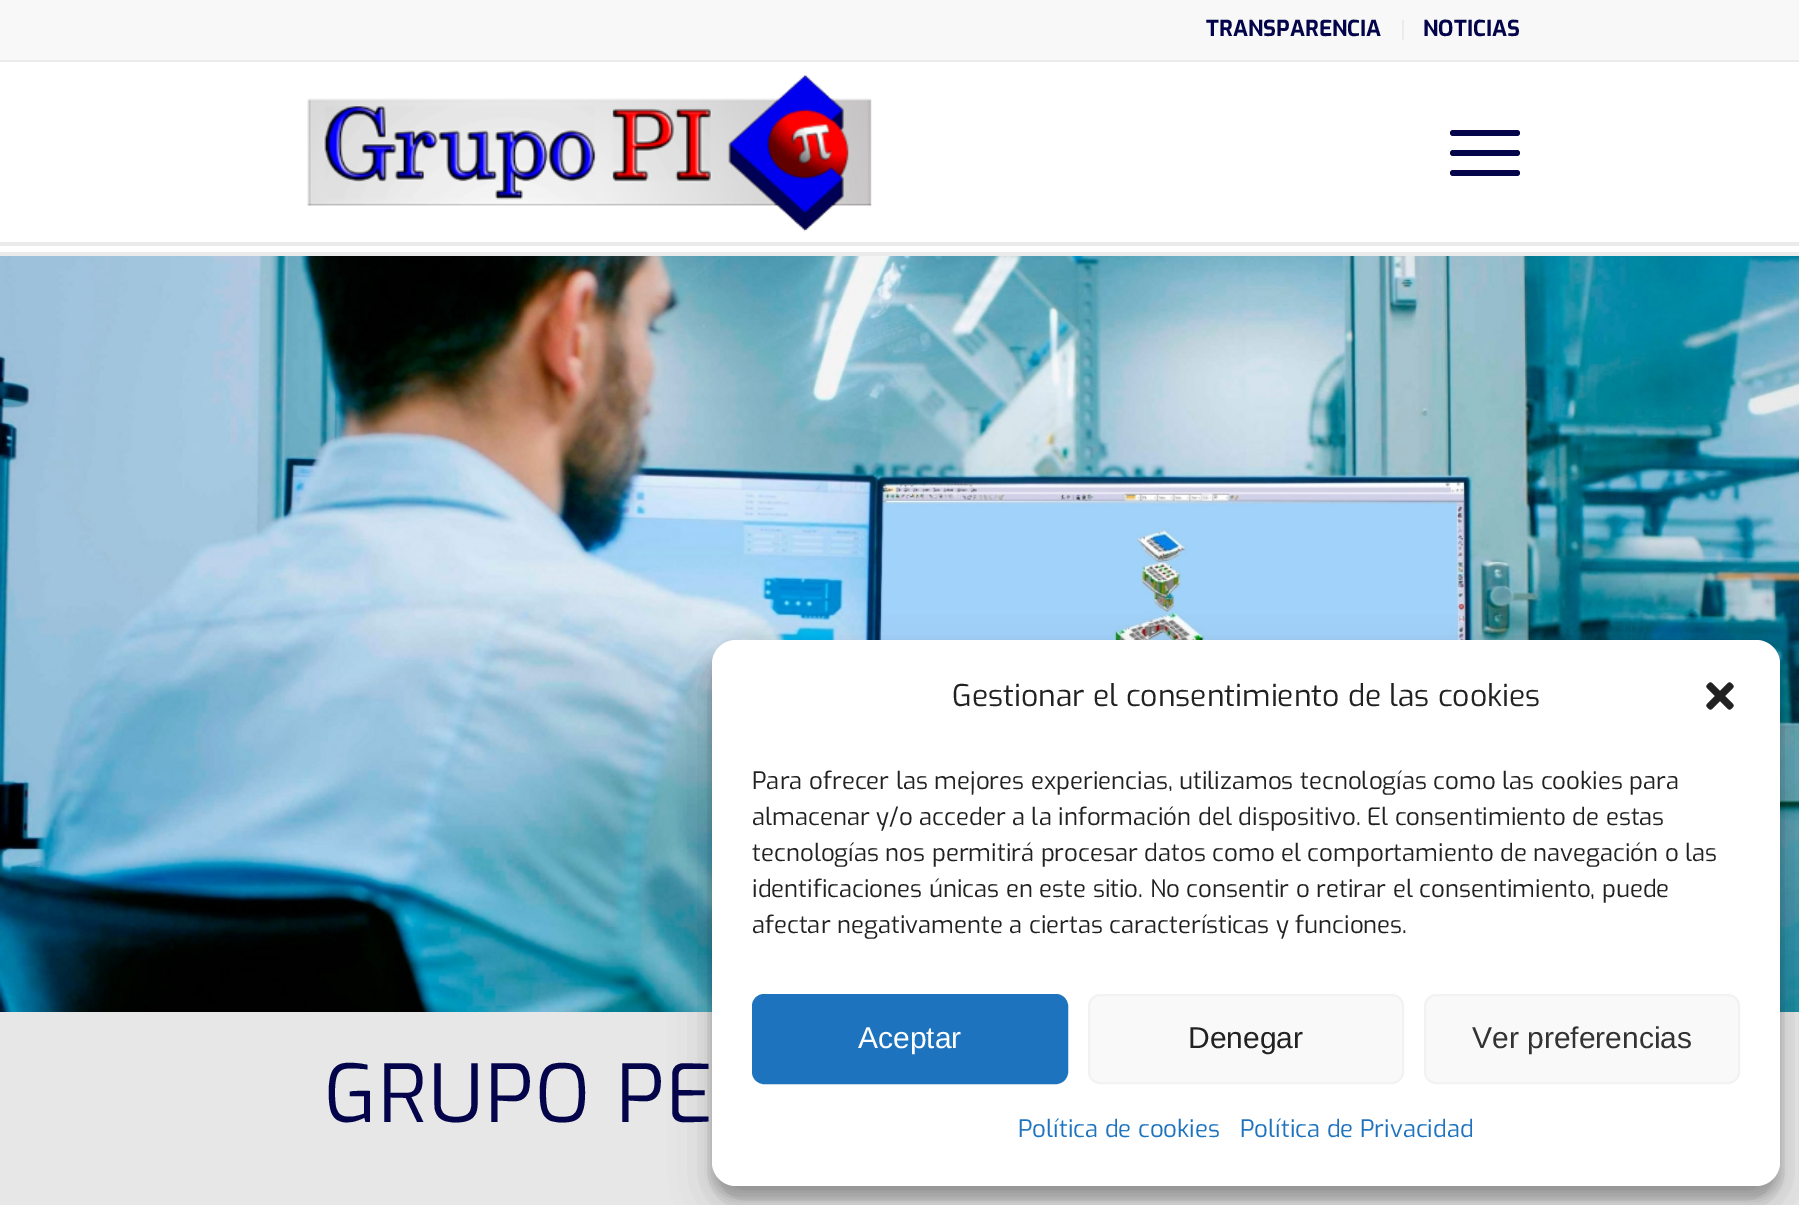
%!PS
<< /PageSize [1799 1205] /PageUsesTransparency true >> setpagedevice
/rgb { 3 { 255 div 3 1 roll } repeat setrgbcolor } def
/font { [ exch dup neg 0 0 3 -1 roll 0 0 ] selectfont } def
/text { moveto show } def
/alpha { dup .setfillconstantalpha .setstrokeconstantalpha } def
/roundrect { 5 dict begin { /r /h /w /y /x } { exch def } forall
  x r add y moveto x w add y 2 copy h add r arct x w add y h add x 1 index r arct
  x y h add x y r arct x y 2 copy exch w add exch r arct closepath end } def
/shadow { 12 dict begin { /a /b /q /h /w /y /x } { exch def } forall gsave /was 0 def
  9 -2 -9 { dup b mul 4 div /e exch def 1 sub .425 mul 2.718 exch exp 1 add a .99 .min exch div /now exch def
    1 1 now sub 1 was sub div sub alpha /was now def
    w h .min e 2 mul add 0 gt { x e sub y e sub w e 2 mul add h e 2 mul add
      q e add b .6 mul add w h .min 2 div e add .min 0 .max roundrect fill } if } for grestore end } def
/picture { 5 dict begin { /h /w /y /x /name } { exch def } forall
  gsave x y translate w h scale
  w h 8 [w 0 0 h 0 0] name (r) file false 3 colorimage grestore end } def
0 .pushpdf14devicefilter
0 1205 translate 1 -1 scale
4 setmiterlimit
255 255 255 rgb
0 0 1799 1205 rectfill
248 248 248 rgb
0 0 1799 60 rectfill
235 235 235 rgb
0 60 1799 2 rectfill
1402 20 2 20 rectfill
0 242 1799 4 rectfill
0 252 1799 4 rectfill
(img_01.rgb) 307 75 565 157 picture
4 4 75 rgb
1450 150 70 6 3 roundrect fill
1450 130 70 6 3 roundrect fill
1450 170 70 6 3 roundrect fill
(img_02.rgb) 0 256 1799 756 picture
231 231 231 rgb
0 1012 1799 193 rectfill
0 0 0 rgb
712 652 1068 546 24 6 0.23 shadow
712 660 1068 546 24 20 0.19 shadow
255 255 255 rgb
712 640 1068 546 24 roundrect fill
(img_03.rgb) 1706 682 28 28 picture
30 115 190 rgb
753 995 314 88 11 roundrect gsave fill grestore
2 setlinewidth
stroke
249 249 249 rgb
1089 995 314 88 11 roundrect gsave fill grestore
242 242 242 rgb
stroke
249 249 249 rgb
1425 995 314 88 11 roundrect gsave fill grestore
242 242 242 rgb
stroke
/Exo-Bold 22 font
4 4 75 rgb
(TRANSPARENCIA) 1206 36 text
(NOTICIAS) 1423 36 text
/Exo-Regular 80 font
324 1122 moveto 2 0 (GRUPO PE) ashow
/Exo-Regular 30 font
34 34 34 rgb
(Gestionar el consentimiento de las cookies) 952 706 text
/Exo-Regular 24 font
(Para ofrecer las mejores experiencias, utilizamos tecnologías como las cookies para) 752 789 text
(almacenar y/o acceder a la información del dispositivo. El consentimiento de estas) 752 825 text
(tecnologías nos permitirá procesar datos como el comportamiento de navegación o las) 752 861 text
(identificaciones únicas en este sitio. No consentir o retirar el consentimiento, puede) 752 897 text
(afectar negativamente a ciertas características y funciones.) 752 933 text
/LiberationSans-Regular 30 font
255 255 255 rgb
(Aceptar) 858 1048 text
34 34 34 rgb
(Denegar) 1188 1048 text
51 51 51 rgb
(Ver preferencias) 1472 1048 text
/Exo-Regular 24 font
30 115 190 rgb
(Política de cookies) 1018 1137 text
(Política de Privacidad) 1240 1137 text
.poppdf14devicefilter showpage
